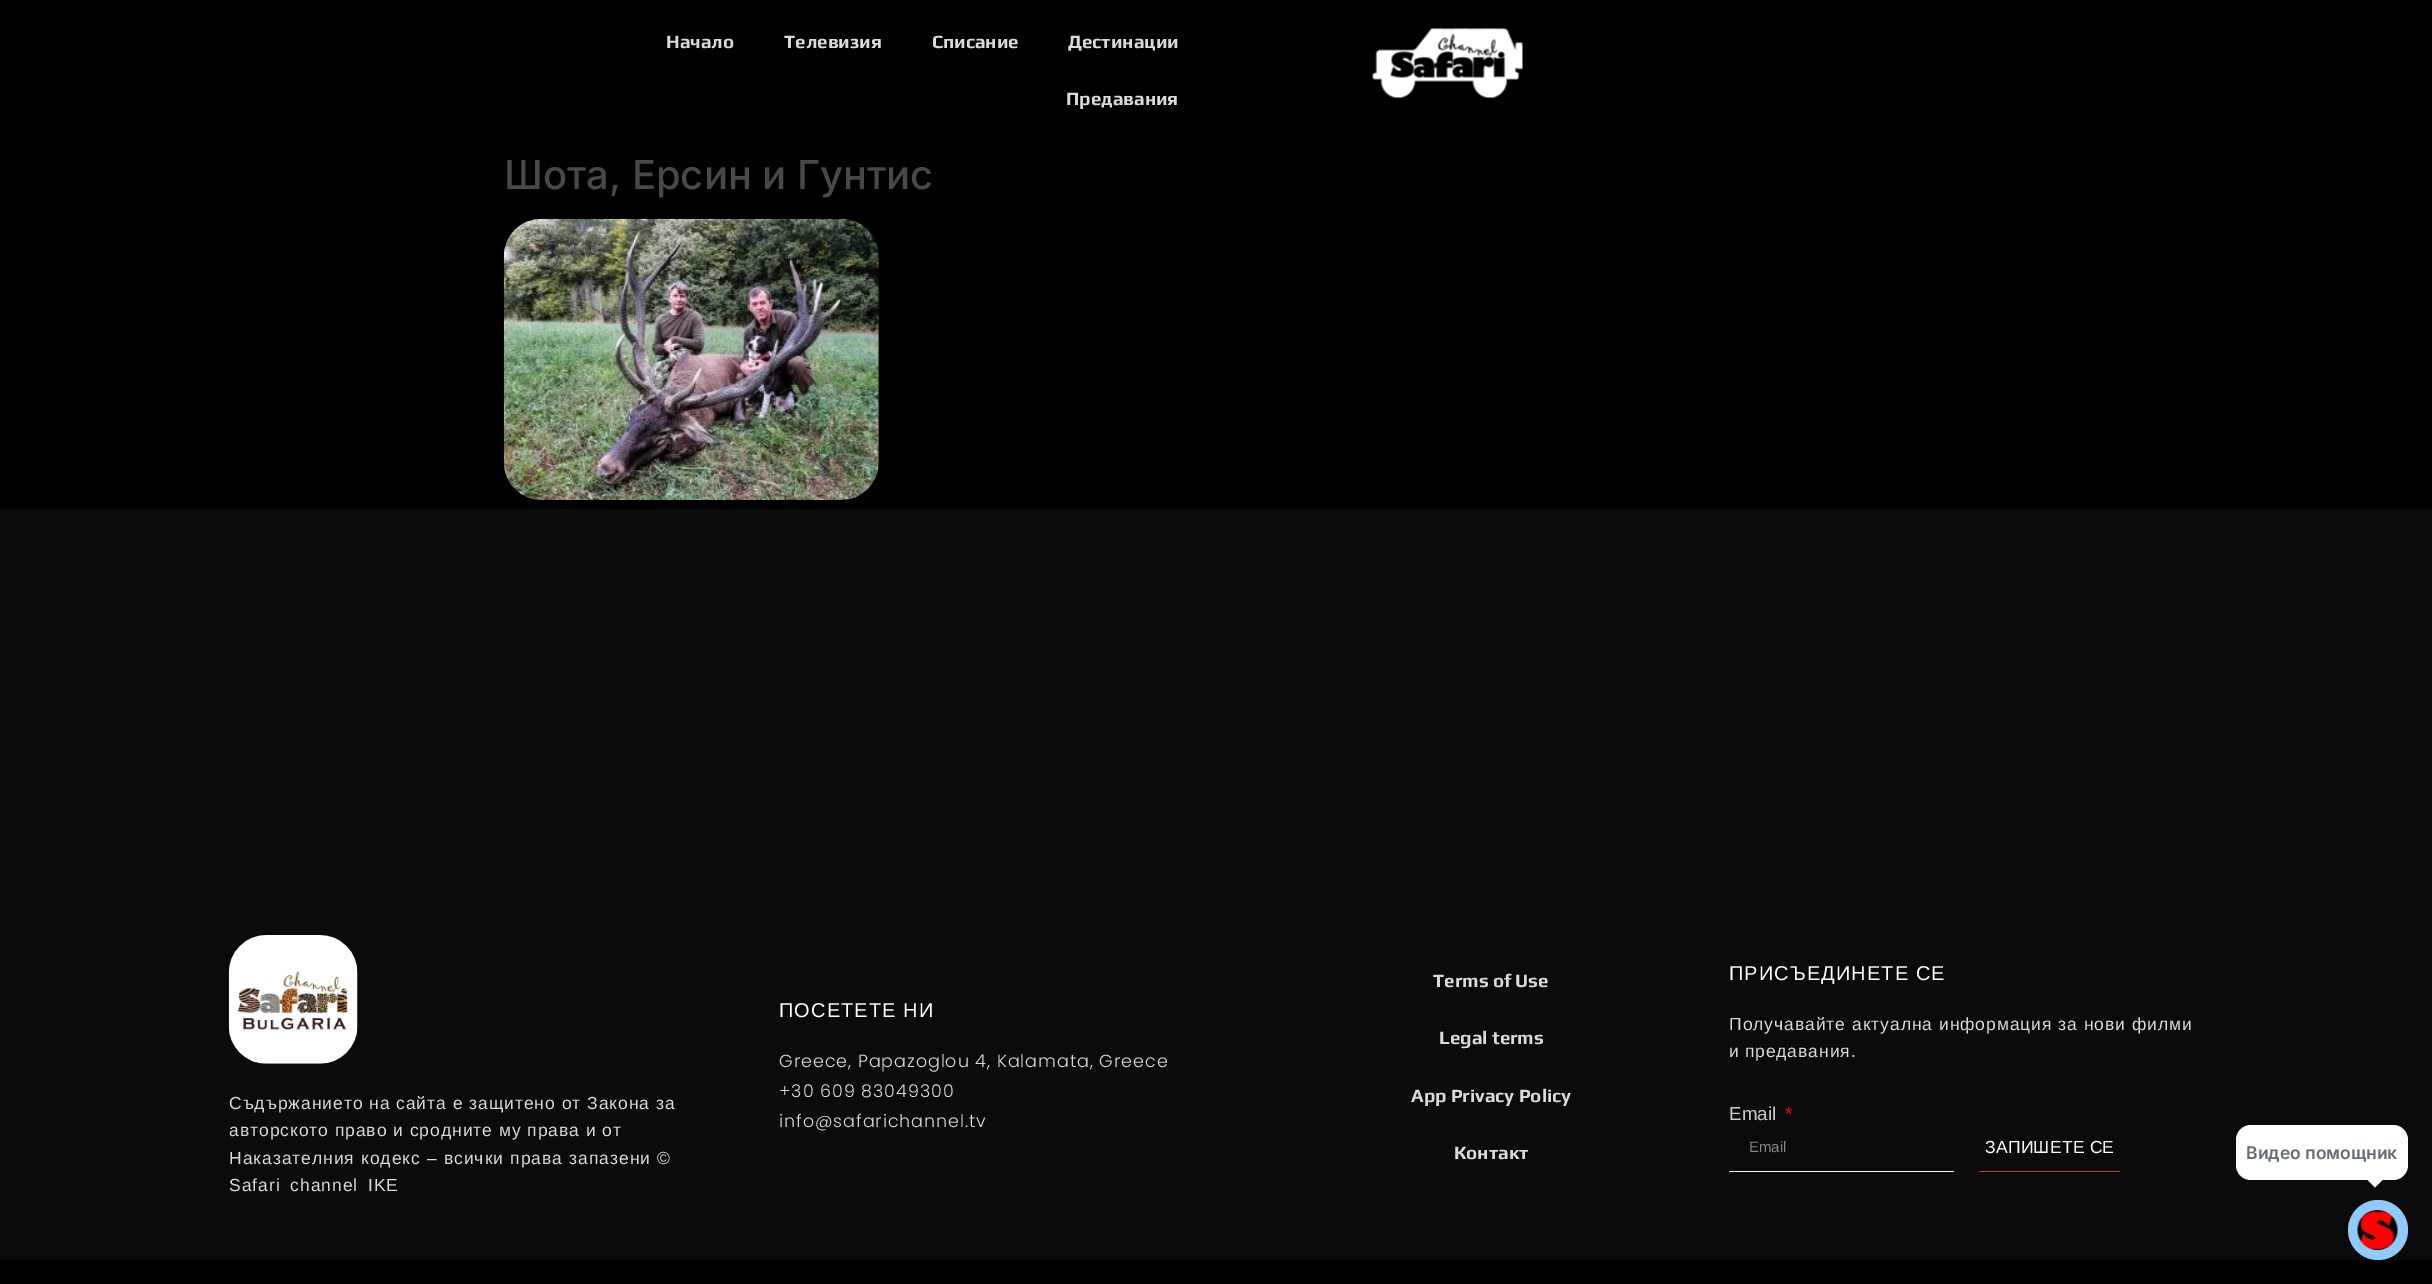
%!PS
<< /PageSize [2432 1284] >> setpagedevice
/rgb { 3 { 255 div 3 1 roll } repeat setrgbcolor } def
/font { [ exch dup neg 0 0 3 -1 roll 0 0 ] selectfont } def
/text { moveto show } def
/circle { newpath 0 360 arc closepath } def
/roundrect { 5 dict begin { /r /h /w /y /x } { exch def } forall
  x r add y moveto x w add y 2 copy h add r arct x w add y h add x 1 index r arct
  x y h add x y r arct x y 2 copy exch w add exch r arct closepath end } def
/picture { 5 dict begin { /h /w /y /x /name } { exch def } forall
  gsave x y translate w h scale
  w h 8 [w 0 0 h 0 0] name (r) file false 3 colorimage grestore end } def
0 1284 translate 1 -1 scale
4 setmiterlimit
0 0 0 rgb
0 0 2432 1284 rectfill
(img_01.rgb) 1372 28 151 71 picture
(img_02.rgb) 503 218 376 282 picture
11 11 11 rgb
0 509 2432 751 rectfill
255 255 255 rgb
1729 1171 225 1 rectfill
203 53 34 rgb
1979 1171 141 1 rectfill
(img_03.rgb) 228 935 130 129 picture
255 255 255 rgb
2236 1125 172 55 15 roundrect fill
2367.5 1180 moveto 15 0 rlineto -7.5 7.5 rlineto closepath fill
144 202 249 rgb
2378 1230 30 circle fill
(img_04.rgb) 2357 1210 41 40 picture
/Play-Bold 18.75 font
218 218 218 rgb
(Начало) 666 48 text
(Телевизия) 784 48 text
(Списание) 932 48 text
(Дестинации) 1068 48 text
(Предавания) 1066 105 text
/Inter-Medium 40 font
72 72 72 rgb
(Шота, Ерсин и Гунтис) 504 189 text
/LiberationSans-Regular 20 font
255 255 255 rgb
779 1017 moveto 1.1 0 (ПОСЕТЕТЕ НИ) ashow
/Poppins-Light 17.5 font
218 218 218 rgb
779 1067 moveto 0.95 0 (Greece, Papazoglou 4, Kalamata, Greece) ashow
779 1097 moveto 0.95 0 (+30 609 83049300) ashow
779 1127 moveto 0.95 0 (info@safarichannel.tv) ashow
/Play-Bold 18.75 font
(Terms of Use) 1433 987 text
(Legal terms) 1439 1044 text
(App Privacy Policy) 1411 1102 text
(Контакт) 1454 1159 text
/LiberationSans-Regular 20 font
255 255 255 rgb
1729 980 moveto 1.1 0 (ПРИСЪЕДИНЕТЕ СЕ) ashow
/LiberationSans-Regular 17.5 font
218 218 218 rgb
1729 1030 moveto 0.95 0 (Получавайте актуална информация за нови филми) ashow
1729 1057 moveto -1 0 32 0.95 0 (и предавания.) awidthshow
/LiberationSans-Regular 18.75 font
203 201 201 rgb
(Email) 1729 1120 text
255 0 0 rgb
(*) 1785 1120 text
/LiberationSans-Regular 15 font
135 135 135 rgb
(Email) 1749 1152 text
/LiberationSans-Regular 17.5 font
255 255 255 rgb
1985 1153 moveto 0.25 0 (ЗАПИШЕТЕ СЕ) ashow
218 218 218 rgb
229 1109 moveto 0.95 0 (Съдържанието на сайта е защитено от Закона за) ashow
229 1136 moveto 0.95 0 (авторското право и сродните му права и от) ashow
229 1164 moveto 0.5 0 32 0.95 0 (Наказателния кодекс – всички права запазени ©) awidthshow
229 1191 moveto 4 0 32 0.95 0 (Safari channel IKE) awidthshow
/Inter-SemiBold 17.5 font
101 109 117 rgb
(Видео помощник) 2246 1159 text
showpage
